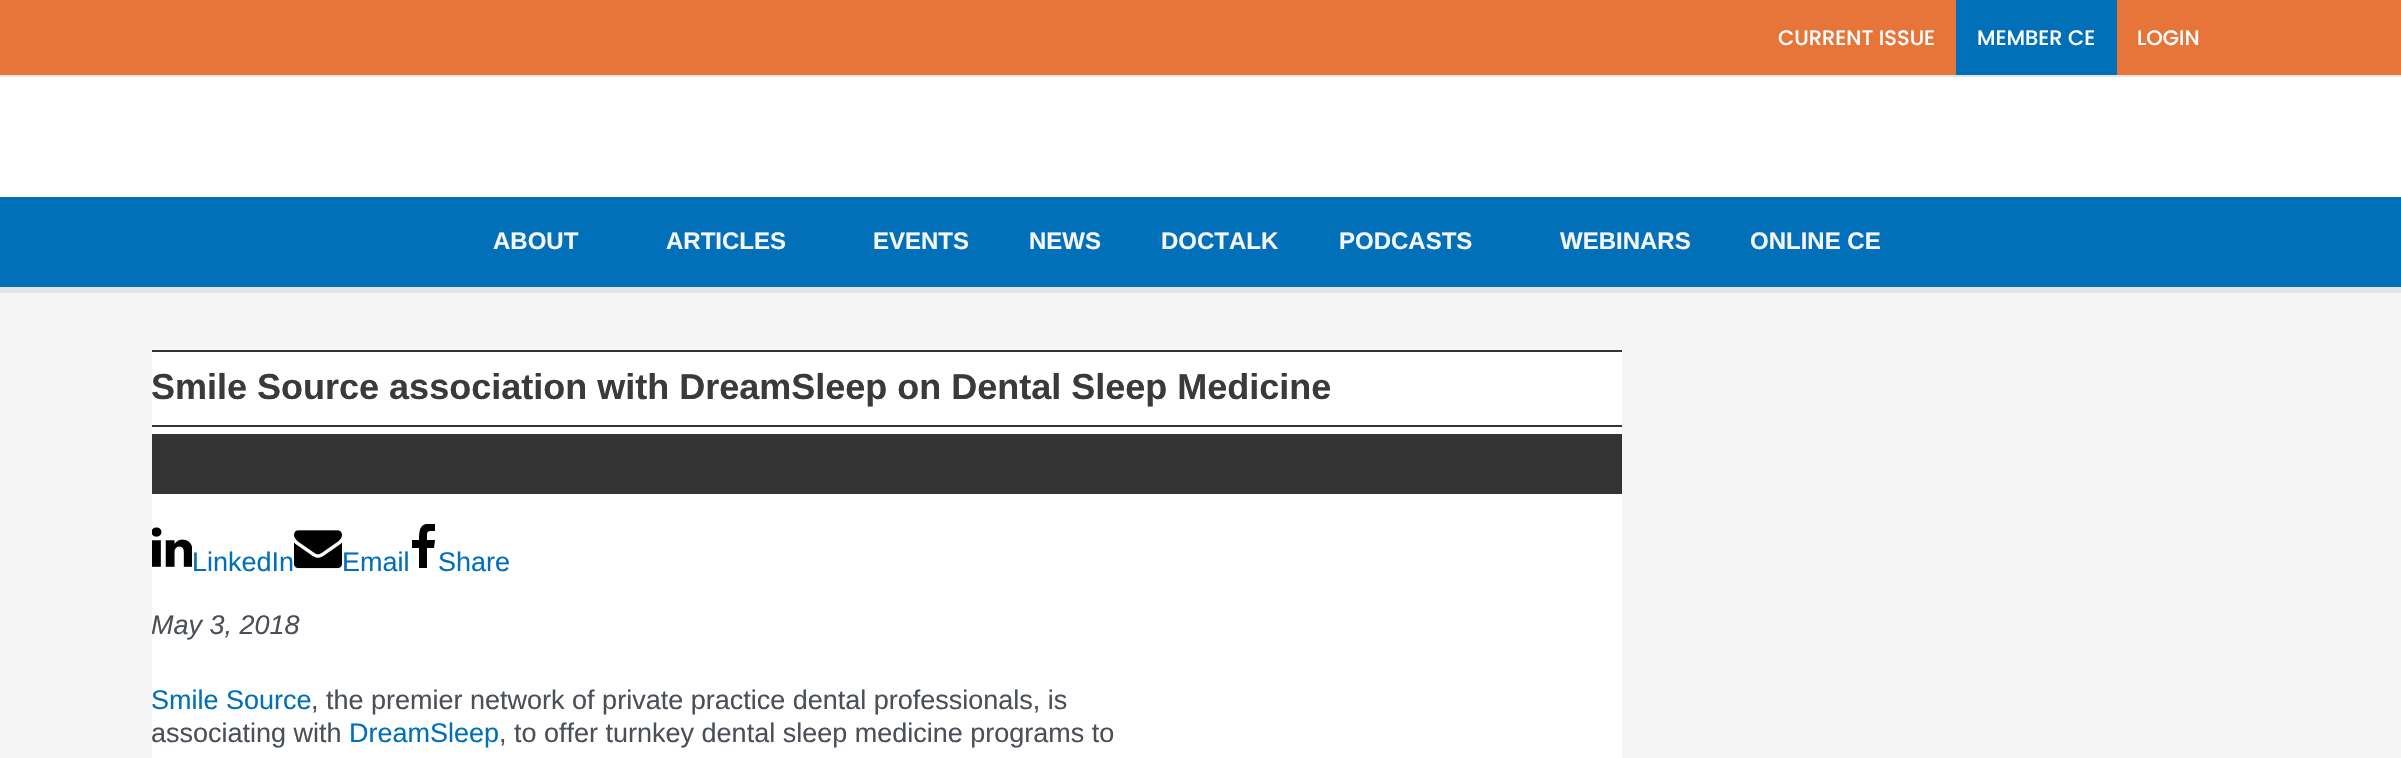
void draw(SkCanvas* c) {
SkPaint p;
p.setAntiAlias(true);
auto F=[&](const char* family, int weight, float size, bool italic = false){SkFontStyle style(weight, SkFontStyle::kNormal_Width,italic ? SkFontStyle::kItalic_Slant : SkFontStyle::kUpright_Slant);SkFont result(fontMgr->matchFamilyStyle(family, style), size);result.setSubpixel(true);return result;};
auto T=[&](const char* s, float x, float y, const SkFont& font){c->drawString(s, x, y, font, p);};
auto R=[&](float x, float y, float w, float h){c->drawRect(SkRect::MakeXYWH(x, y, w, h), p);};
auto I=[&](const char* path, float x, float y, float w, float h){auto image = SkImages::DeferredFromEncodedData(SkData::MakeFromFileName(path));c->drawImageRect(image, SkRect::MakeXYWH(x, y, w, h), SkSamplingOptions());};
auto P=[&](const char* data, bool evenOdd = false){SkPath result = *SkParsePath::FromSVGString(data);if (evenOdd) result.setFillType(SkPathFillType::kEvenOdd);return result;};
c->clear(0xfff5f5f5);
p.setColor(0xffe77438);
R(0,0,2401,75);
p.setColor(0xffe5e5e5);
R(0,75,2401,2);
auto f1 = F("Poppins",500,21);
p.setColor(0xffffffff);
T("CURRENT ISSUE",1778,45,f1);
p.setColor(0xff0170b9);
R(1956,0,161,75);
p.setColor(0xffffffff);
T("MEMBER CE",1977,45,f1);
T("LOGIN",2137,45,f1);
R(0,77,2401,120);
p.setColor(0xff0170b9);
R(0,197,2401,90);
p.setColor(0xffe5e5e5);
R(0,287,2401,6);
auto f2 = F("Liberation Sans",700,24);
p.setColor(0xfff5f5f5);
T("ABOUT",493,249,f2);
T("ARTICLES",666,249,f2);
T("EVENTS",873,249,f2);
T("NEWS",1029,249,f2);
T("DOCTALK",1161,249,f2);
T("PODCASTS",1339,249,f2);
T("WEBINARS",1560,249,f2);
T("ONLINE CE",1750,249,f2);
p.setColor(0xffffffff);
R(152,352,1470,406);
p.setColor(0xff333333);
R(152,350,1470,2);
R(152,425,1470,2);
auto f3 = F("Liberation Sans",700,36);
p.setColor(0xff3a3a3a);
T("Smile Source association with DreamSleep on Dental Sleep Medicine",151,399,f3);
p.setColor(0xff333333);
R(152,434,1470,60);
I("1.png",152,527,40,40);
auto f4 = F("Liberation Sans",400,27);
p.setColor(0xff0170b9);
T("LinkedIn",192,571,f4);
I("2.png",294,530,48,39);
T("Email",342,571,f4);
T("Share",438,571,f4);
c->save();
c->clipRect(SkRect::MakeXYWH(410,524,28,48));
p.setColor(0xff000000);
c->drawPath(P("M435 524v7c-9 0-8 0-8 9h8l-1 8h-7v20h-8v-20h-7v-8h7c0-13 2-18 16-16z"),p);
c->restore();
auto f5 = F("Liberation Sans",400,27,true);
p.setColor(0xff4b4f58);
T("May 3, 2018",151,634,f5);
p.setColor(0xff0170b9);
T("Smile Source",151,709,f4);
p.setColor(0xff4b4f58);
T(", the premier network of private practice dental professionals, is",311,709,f4);
T("associating with",151,742,f4);
p.setColor(0xff0170b9);
T("DreamSleep",349,742,f4);
p.setColor(0xff4b4f58);
T(", to offer turnkey dental sleep medicine programs to",499,742,f4);
}
